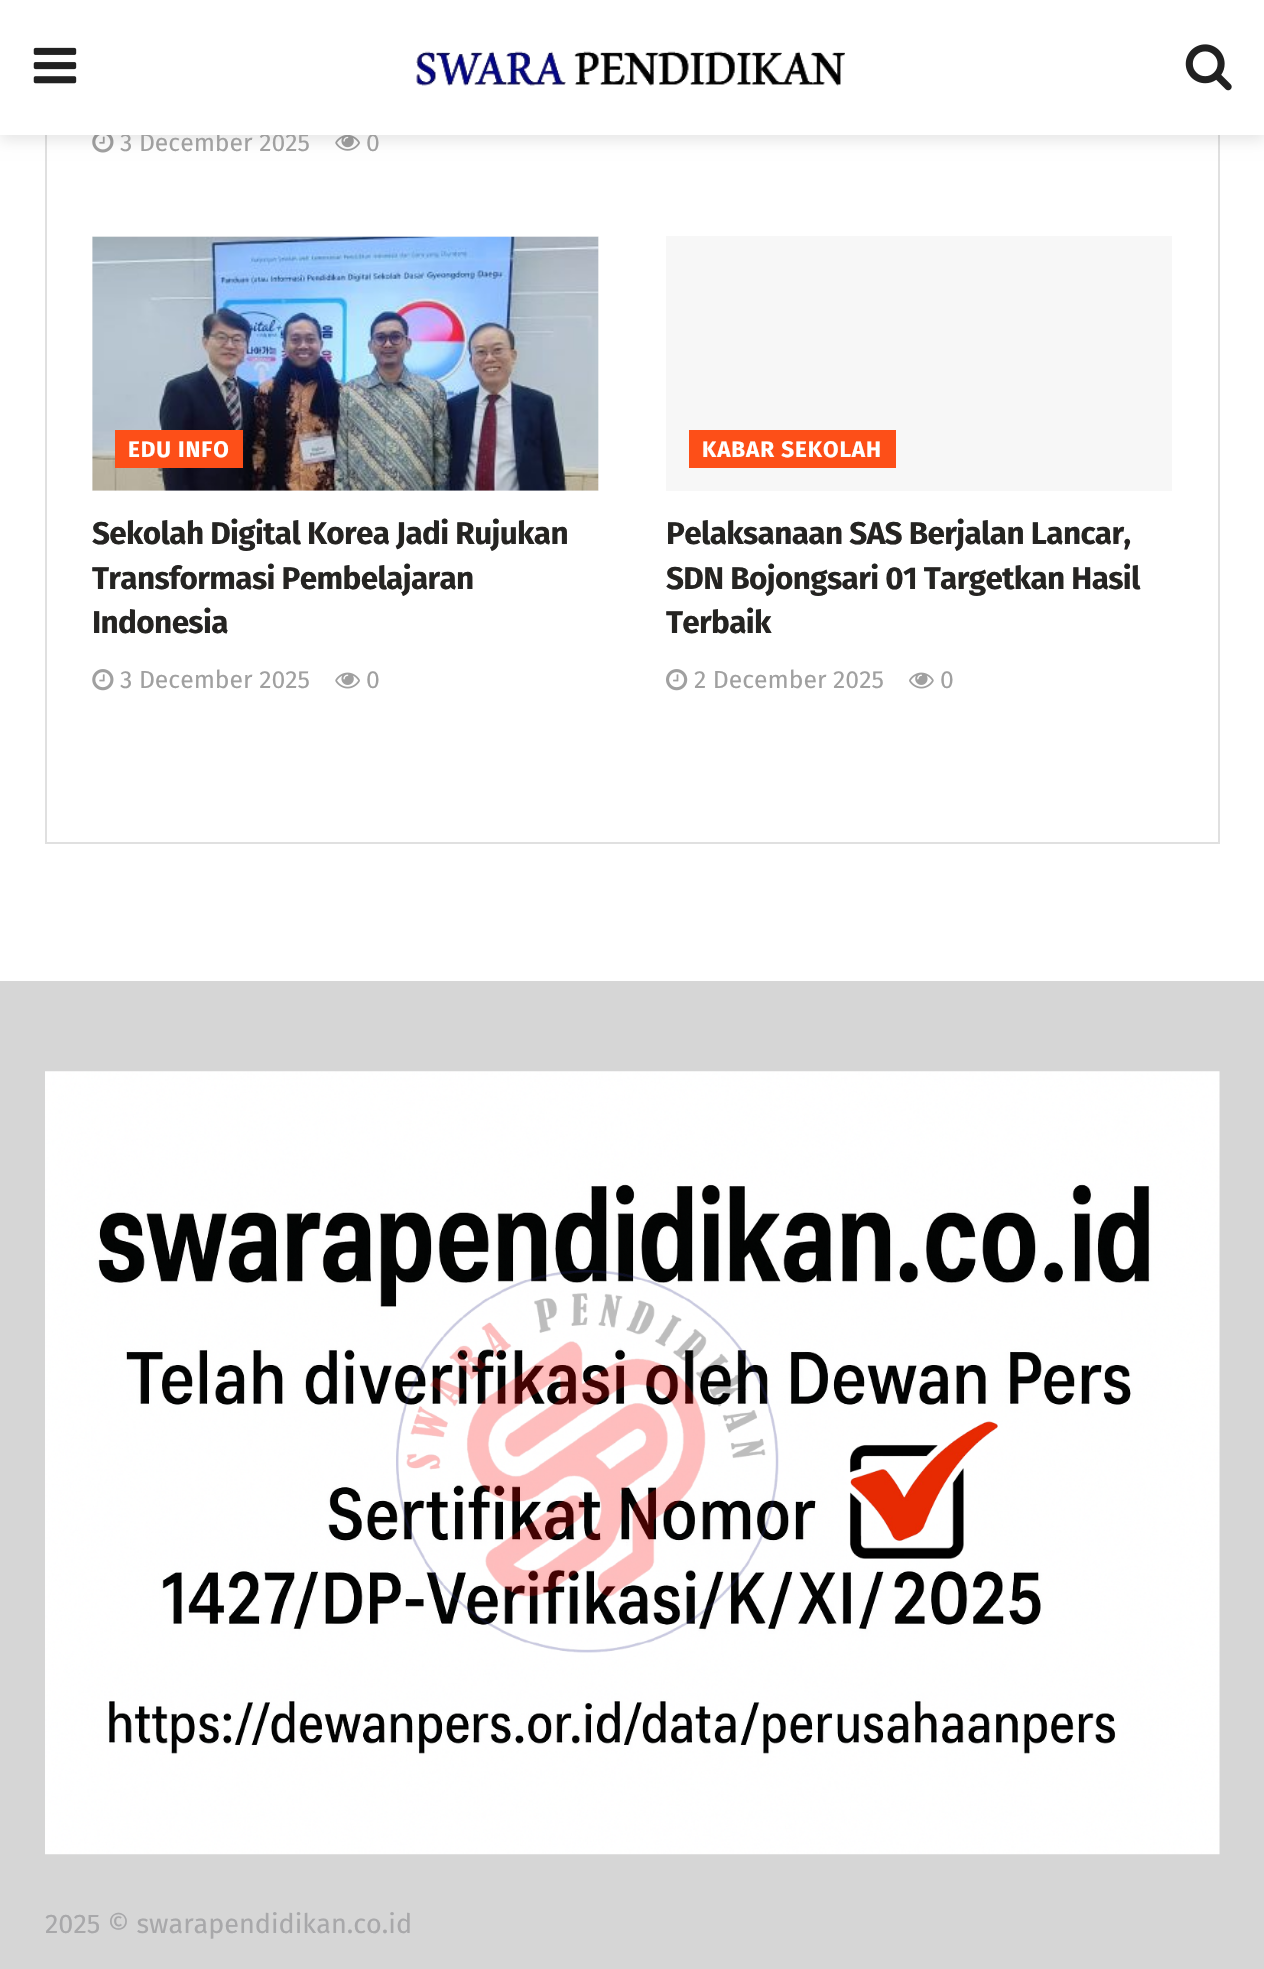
void draw(SkCanvas* c) {
SkPaint p;
p.setAntiAlias(true);
auto F=[&](const char* family, int weight, float size, bool italic = false){SkFontStyle style(weight, SkFontStyle::kNormal_Width,italic ? SkFontStyle::kItalic_Slant : SkFontStyle::kUpright_Slant);SkFont result(fontMgr->matchFamilyStyle(family, style), size);result.setSubpixel(true);return result;};
auto T=[&](const char* s, float x, float y, const SkFont& font){c->drawString(s, x, y, font, p);};
auto L=[&](const char* s, float x, float y, const SkFont& font, const SkPaint& ink, float letter, float word){std::vector<SkGlyphID> glyphs(font.countText(s, strlen(s), SkTextEncoding::kUTF8));std::vector<float> xs(glyphs.size());font.textToGlyphs(s, strlen(s), SkTextEncoding::kUTF8, glyphs);font.getXPos(glyphs, xs, x);float extra = 0;for (size_t i = 0; i < glyphs.size(); i++) {xs[i] += extra;extra += letter + word * (glyphs[i] == font.unicharToGlyph(' '));}c->drawTextBlob(SkTextBlob::MakeFromPosHGlyphs(glyphs, xs, y, font), 0, 0, ink);};
auto R=[&](float x, float y, float w, float h){c->drawRect(SkRect::MakeXYWH(x, y, w, h), p);};
auto I=[&](const char* path, float x, float y, float w, float h){auto image = SkImages::DeferredFromEncodedData(SkData::MakeFromFileName(path));c->drawImageRect(image, SkRect::MakeXYWH(x, y, w, h), SkSamplingOptions());};
c->clear(0xffffffff);
p.setStroke(true);
p.setStrokeWidth(2);
p.setColor(0xffe0e0e0);
c->drawRect(SkRect::MakeXYWH(46,-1,1173,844),p);
I("4.png",92,135,22,18);
I("5.png",335,135,25,16);
p.setStroke(false);
p.setColor(0x1a000000);
p.setMaskFilter(SkMaskFilter::MakeBlur(kNormal_SkBlurStyle, 7));
c->drawRect(SkRect::MakeXYWH(0,5,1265,135),p);
p.setMaskFilter(nullptr);
auto f1 = F("Fira Sans",400,24.75);
p.setColor(0xffa0a0a0);
T("3 December 2025",120,151,f1);
T("0",366,151,f1);
p.setColor(0xffffffff);
R(0,0,1264,135);
I("1.png",33,47,44,37);
I("2.png",416,51,429,35);
I("3.png",1185,44,47,47);
p.setColor(0xfff7f7f7);
R(92,236,507,255);
I("6.png",92,236,507,255);
p.setColor(0xfffd4f18);
R(115,430,128,38);
auto f2 = F("Fira Sans",700,22.5);
p.setColor(0xffffffff);
L("EDU INFO",128,457,f2,p,.9,0);
auto f3 = F("Fira Sans",700,31.5);
p.setColor(0xff252422);
L("Sekolah Digital Korea Jadi Rujukan",92,544,f3,p,-.65,0);
L("Transformasi Pembelajaran",92,589,f3,p,-.65,0);
L("Indonesia",92,633,f3,p,-.65,0);
I("7.png",92,669,22,22);
p.setColor(0xffa0a0a0);
T("3 December 2025",120,688,f1);
I("8.png",335,672,25,17);
T("0",366,688,f1);
p.setColor(0xfff7f7f7);
R(666,236,506,255);
p.setColor(0xfffd4f18);
R(689,430,207,38);
p.setColor(0xffffffff);
L("KABAR SEKOLAH",702,457,f2,p,.9,0);
p.setColor(0xff252422);
L("Pelaksanaan SAS Berjalan Lancar,",666,544,f3,p,-.65,0);
L("SDN Bojongsari 01 Targetkan Hasil",666,589,f3,p,-.65,0);
L("Terbaik",666,633,f3,p,-.65,0);
I("9.png",666,669,22,22);
p.setColor(0xffa0a0a0);
T("2 December 2025",694,688,f1);
I("10.png",909,672,25,17);
T("0",940,688,f1);
p.setColor(0xffd6d6d6);
R(0,981,1264,988);
I("11.png",45,1071,1175,784);
auto f4 = F("Fira Sans",400,27);
p.setColor(0xffa8a8aa);
T("2025 © swarapendidikan.co.id",45,1933,f4);
}
